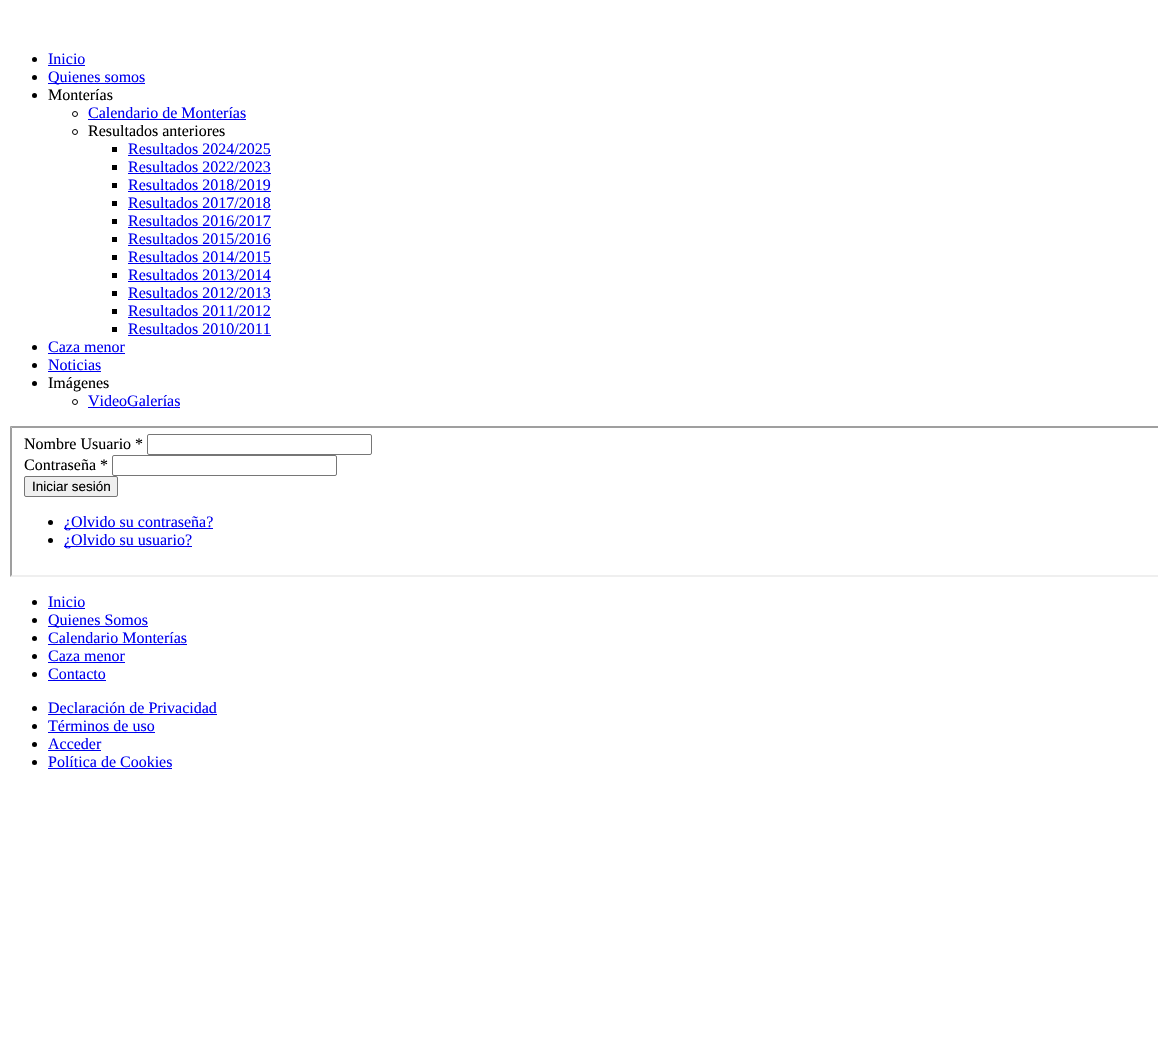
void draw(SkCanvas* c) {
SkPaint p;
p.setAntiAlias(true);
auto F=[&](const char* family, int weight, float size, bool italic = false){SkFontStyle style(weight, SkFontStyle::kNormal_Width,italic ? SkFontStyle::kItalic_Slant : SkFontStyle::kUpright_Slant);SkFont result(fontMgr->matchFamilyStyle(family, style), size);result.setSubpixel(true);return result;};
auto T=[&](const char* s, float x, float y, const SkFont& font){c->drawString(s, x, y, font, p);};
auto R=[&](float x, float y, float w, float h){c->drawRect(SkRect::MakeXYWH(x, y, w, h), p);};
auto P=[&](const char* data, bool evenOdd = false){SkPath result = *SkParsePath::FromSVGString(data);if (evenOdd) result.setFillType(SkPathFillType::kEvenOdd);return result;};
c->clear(0xffffffff);
p.setColor(0xff000000);
c->drawCircle(34.5,59.5,2.5,p);
auto f1 = F("Liberation Serif",400,16);
p.setColor(0xff0000ee);
T("Inicio",48,64,f1);
R(48,65,37,1);
p.setColor(0xff000000);
c->drawCircle(34.5,77.5,2.5,p);
p.setColor(0xff0000ee);
R(48,83,97,1);
T("Quienes somos",48,82,f1);
p.setColor(0xff000000);
c->drawCircle(34.5,95.5,2.5,p);
T("Monterías",48,100,f1);
p.setStroke(true);
p.setStrokeWidth(1);
c->drawCircle(75,114,2.5,p);
p.setStroke(false);
p.setColor(0xff0000ee);
T("Calendario de Monterías",88,118,f1);
R(88,119,158,1);
p.setStroke(true);
p.setColor(0xff000000);
c->drawCircle(75,132,2.5,p);
p.setStroke(false);
T("Resultados anteriores",88,136,f1);
R(112,147,5,5);
p.setColor(0xff0000ee);
T("Resultados 2024/2025",128,154,f1);
R(128,155,143,1);
p.setColor(0xff000000);
R(112,165,5,5);
p.setColor(0xff0000ee);
T("Resultados 2022/2023",128,172,f1);
R(128,173,143,1);
p.setColor(0xff000000);
R(112,183,5,5);
p.setColor(0xff0000ee);
T("Resultados 2018/2019",128,190,f1);
R(128,191,143,1);
p.setColor(0xff000000);
R(112,201,5,5);
p.setColor(0xff0000ee);
T("Resultados 2017/2018",128,208,f1);
R(128,209,143,1);
p.setColor(0xff000000);
R(112,219,5,5);
p.setColor(0xff0000ee);
T("Resultados 2016/2017",128,226,f1);
R(128,227,143,1);
p.setColor(0xff000000);
R(112,237,5,5);
p.setColor(0xff0000ee);
T("Resultados 2015/2016",128,244,f1);
R(128,245,143,1);
p.setColor(0xff000000);
R(112,255,5,5);
p.setColor(0xff0000ee);
T("Resultados 2014/2015",128,262,f1);
R(128,263,143,1);
p.setColor(0xff000000);
R(112,273,5,5);
p.setColor(0xff0000ee);
T("Resultados 2013/2014",128,280,f1);
R(128,281,143,1);
p.setColor(0xff000000);
R(112,291,5,5);
p.setColor(0xff0000ee);
T("Resultados 2012/2013",128,298,f1);
R(128,299,143,1);
p.setColor(0xff000000);
R(112,309,5,5);
p.setColor(0xff0000ee);
T("Resultados 2011/2012",128,316,f1);
R(128,317,143,1);
p.setColor(0xff000000);
R(112,327,5,5);
p.setColor(0xff0000ee);
T("Resultados 2010/2011",128,334,f1);
R(128,335,143,1);
p.setColor(0xff000000);
c->drawCircle(34.5,347.5,2.5,p);
p.setColor(0xff0000ee);
T("Caza menor",48,352,f1);
R(48,353,77,1);
p.setColor(0xff000000);
c->drawCircle(34.5,365.5,2.5,p);
p.setColor(0xff0000ee);
T("Noticias",48,370,f1);
R(48,371,53,1);
p.setColor(0xff000000);
c->drawCircle(34.5,383.5,2.5,p);
T("Imágenes",48,388,f1);
p.setStroke(true);
c->drawCircle(75,402,2.5,p);
p.setStroke(false);
p.setColor(0xff0000ee);
T("VideoGalerías",88,406,f1);
R(88,407,92,1);
p.setColor(0xff9f9f9f);
c->drawPath(P("M10 426h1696l-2 2h-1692z"),p);
p.setColor(0xffefefef);
c->drawPath(P("M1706 577h-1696l2-2h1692z"),p);
p.setColor(0xff9f9f9f);
c->drawPath(P("M10 577v-151l2 2v147z"),p);
p.setColor(0xff000000);
T("Nombre Usuario *",24,449,f1);
p.setStroke(true);
p.setColor(0xff767676);
c->drawRoundRect(SkRect::MakeXYWH(147.5,434.5,224,20),1.5,1.5,p);
p.setStroke(false);
p.setColor(0xff000000);
T("Contraseña *",24,470,f1);
p.setStroke(true);
p.setColor(0xff767676);
c->drawRoundRect(SkRect::MakeXYWH(112.5,455.5,224,20),1.5,1.5,p);
p.setStroke(false);
p.setColor(0xffefefef);
c->drawRoundRect(SkRect::MakeXYWH(24.5,476.5,93,20),1.5,1.5,p);
p.setStroke(true);
p.setColor(0xff767676);
c->drawRoundRect(SkRect::MakeXYWH(24.5,476.5,93,20),1.5,1.5,p);
auto f2 = F("Liberation Sans",400,13.5);
p.setStroke(false);
p.setColor(0xff000000);
T("Iniciar sesión",32,491,f2);
c->drawCircle(50.5,522.5,2.5,p);
p.setColor(0xff0000ee);
R(64,528,149,1);
T("¿Olvido su contraseña?",64,527,f1);
p.setColor(0xff000000);
c->drawCircle(50.5,540.5,2.5,p);
p.setColor(0xff0000ee);
R(64,546,128,1);
T("¿Olvido su usuario?",64,545,f1);
p.setColor(0xff000000);
c->drawCircle(34.5,602.5,2.5,p);
p.setColor(0xff0000ee);
T("Inicio",48,607,f1);
R(48,608,37,1);
p.setColor(0xff000000);
c->drawCircle(34.5,620.5,2.5,p);
p.setColor(0xff0000ee);
R(48,626,100,1);
T("Quienes Somos",48,625,f1);
p.setColor(0xff000000);
c->drawCircle(34.5,638.5,2.5,p);
p.setColor(0xff0000ee);
T("Calendario Monterías",48,643,f1);
R(48,644,139,1);
p.setColor(0xff000000);
c->drawCircle(34.5,656.5,2.5,p);
p.setColor(0xff0000ee);
T("Caza menor",48,661,f1);
R(48,662,77,1);
p.setColor(0xff000000);
c->drawCircle(34.5,674.5,2.5,p);
p.setColor(0xff0000ee);
T("Contacto",48,679,f1);
R(48,680,58,1);
p.setColor(0xff000000);
c->drawCircle(34.5,708.5,2.5,p);
p.setColor(0xff0000ee);
T("Declaración de Privacidad",48,713,f1);
R(48,714,169,1);
p.setColor(0xff000000);
c->drawCircle(34.5,726.5,2.5,p);
p.setColor(0xff0000ee);
T("Términos de uso",48,731,f1);
R(48,732,107,1);
p.setColor(0xff000000);
c->drawCircle(34.5,744.5,2.5,p);
p.setColor(0xff0000ee);
T("Acceder",48,749,f1);
R(48,750,53,1);
p.setColor(0xff000000);
c->drawCircle(34.5,762.5,2.5,p);
p.setColor(0xff0000ee);
T("Política de Cookies",48,767,f1);
R(48,768,124,1);
}
